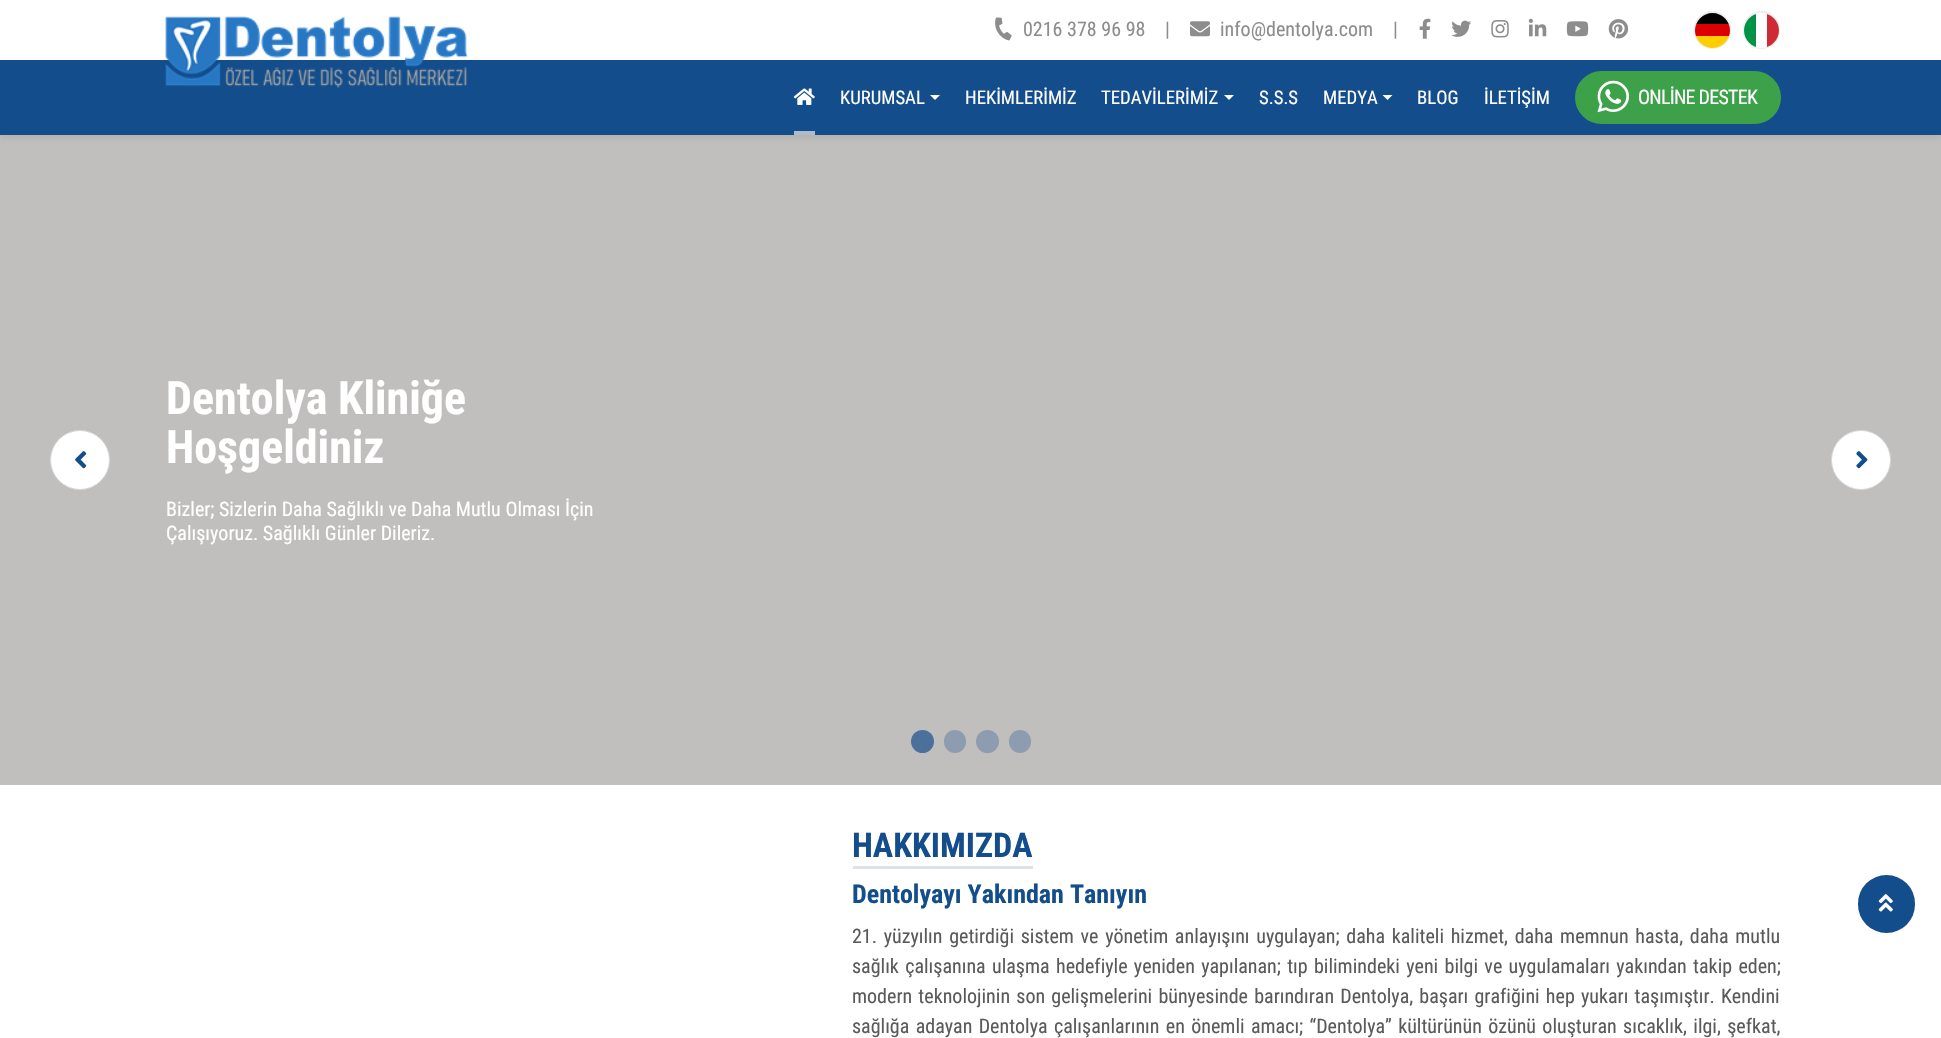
void draw(SkCanvas* c) {
SkPaint p;
p.setAntiAlias(true);
auto F=[&](const char* family, int weight, float size, bool italic = false){SkFontStyle style(weight, SkFontStyle::kNormal_Width,italic ? SkFontStyle::kItalic_Slant : SkFontStyle::kUpright_Slant);SkFont result(fontMgr->matchFamilyStyle(family, style), size);result.setSubpixel(true);return result;};
auto T=[&](const char* s, float x, float y, const SkFont& font){c->drawString(s, x, y, font, p);};
auto L=[&](const char* s, float x, float y, const SkFont& font, const SkPaint& ink, float letter, float word){std::vector<SkGlyphID> glyphs(font.countText(s, strlen(s), SkTextEncoding::kUTF8));std::vector<float> xs(glyphs.size());font.textToGlyphs(s, strlen(s), SkTextEncoding::kUTF8, glyphs);font.getXPos(glyphs, xs, x);float extra = 0;for (size_t i = 0; i < glyphs.size(); i++) {xs[i] += extra;extra += letter + word * (glyphs[i] == font.unicharToGlyph(' '));}c->drawTextBlob(SkTextBlob::MakeFromPosHGlyphs(glyphs, xs, y, font), 0, 0, ink);};
auto R=[&](float x, float y, float w, float h){c->drawRect(SkRect::MakeXYWH(x, y, w, h), p);};
auto Q=[&](float x, float y, float w, float h, float radius){c->drawRoundRect(SkRect::MakeXYWH(x, y, w, h), radius, radius, p);};
auto I=[&](const char* path, float x, float y, float w, float h){auto image = SkImages::DeferredFromEncodedData(SkData::MakeFromFileName(path));c->drawImageRect(image, SkRect::MakeXYWH(x, y, w, h), SkSamplingOptions());};
auto P=[&](const char* data, bool evenOdd = false){SkPath result = *SkParsePath::FromSVGString(data);if (evenOdd) result.setFillType(SkPathFillType::kEvenOdd);return result;};
c->clear(0xffffffff);
I("1.png",995,17,17,24);
auto f1 = F("Roboto Condensed",400,20);
p.setColor(0xff8d8d8d);
T("0216 378 96 98",1023,36,f1);
T("|",1165,36,f1);
I("2.png",1190,21,20,16);
T("info@dentolya.com",1220,36,f1);
T("|",1393,36,f1);
I("3.png",1419,18,12,21);
I("4.png",1451,20,20,17);
I("5.png",1491,20,18,18);
I("6.png",1528,18,19,19);
I("7.png",1566,21,23,16);
I("8.png",1608,19,21,20);
p.setColor(0xfff0eeee);
Q(1694,11,37,38,18.5);
p.setStroke(true);
p.setStrokeWidth(1);
p.setColor(0xb3f0eeee);
c->drawRoundRect(SkRect::MakeXYWH(1694.5,11.5,36,37),18,18,p);
c->save();
c->clipPath(P("M1712.5 13c9.5 0 17.5 8 17.5 17.5c0 9.5-8 17.5-17.5 17.5c-9.5 0-17.5-8-17.5-17.5c0-9.5 8-17.5 17.5-17.5z"),true);
p.setStroke(false);
p.setColor(0xffffce00);
R(1696,36,33,12);
p.setColor(0xff000000);
R(1696,13,33,11);
p.setColor(0xffdd0000);
R(1695,24,35,12);
c->restore();
p.setColor(0xfff0eeee);
Q(1743,11,37,38,18.5);
p.setStroke(true);
p.setColor(0xb3f0eeee);
c->drawRoundRect(SkRect::MakeXYWH(1743.5,11.5,36,37),18,18,p);
p.setStroke(false);
p.setColor(0xffffffff);
c->drawCircle(1761.5,30.5,17.5,p);
c->save();
c->clipPath(P("M1761.5 13c9.5 0 17.5 8 17.5 17.5c0 9.5-8 17.5-17.5 17.5c-9.5 0-17.5-8-17.5-17.5c0-9.5 8-17.5 17.5-17.5z"),true);
p.setColor(0xff009246);
R(1744,14,12,33);
p.setColor(0xffce2b37);
R(1767,14,12,33);
c->restore();
p.setColor(0xffc1bebe);
R(0,135,1941,650);
p.setColor(0x12000000);
p.setMaskFilter(SkMaskFilter::MakeBlur(kNormal_SkBlurStyle, 2.5));
c->drawRect(SkRect::MakeXYWH(0,63,1941,75),p);
p.setMaskFilter(nullptr);
p.setColor(0xff134d8b);
R(0,60,1941,75);
I("9.png",165,16,303,72);
I("10.png",793,88,22,17);
p.setColor(0xffadbccb);
R(794,131,21,4);
auto f2 = F("Roboto Condensed",400,18.75);
p.setColor(0xffffffff);
T("KURUMSAL",840,104,f2);
c->drawPath(P("M930 95h10l-5 5z"),p);
T("HEKİMLERİMİZ",965,104,f2);
T("TEDAVİLERİMİZ",1101,104,f2);
c->drawPath(P("M1224 95h10l-5 5z"),p);
T("S.S.S",1259,104,f2);
T("MEDYA",1323,104,f2);
c->drawPath(P("M1382.5 95h10l-5 5z"),p);
T("BLOG",1417,104,f2);
T("İLETİŞİM",1484,104,f2);
p.setColor(0xff3ca149);
Q(1575,71,206,53,26.5);
I("11.png",1597,80,32,33);
p.setColor(0xffffffff);
L("ONLİNE DESTEK",1638,104,f1,p,-.75,0);
auto f3 = F("Roboto Condensed",700,46);
T("Dentolya Kliniğe",166,414,f3);
T("Hoşgeldiniz",166,463,f3);
T("Bizler; Sizlerin Daha Sağlıklı ve Daha Mutlu Olması İçin",166,516,f1);
T("Çalışıyoruz. Sağlıklı Günler Dileriz.",166,540,f1);
c->drawCircle(80,460,29.5,p);
p.setStroke(true);
p.setColor(0xffd7d7d7);
c->drawCircle(80,460,29.5,p);
I("12.png",75,451,12,18);
p.setStroke(false);
p.setColor(0xffffffff);
c->drawCircle(1861,460,29.5,p);
p.setStroke(true);
p.setColor(0xffd7d7d7);
c->drawCircle(1861,460,29.5,p);
I("13.png",1856,451,12,18);
p.setStroke(false);
p.setColor(0xff4b719b);
c->drawCircle(922.5,741.5,11.5,p);
p.setColor(0xff8d9caf);
Q(944,730,22,23,11);
c->drawCircle(987.5,741.5,11.5,p);
Q(1009,730,22,23,11);
p.setColor(0xffdee2e6);
R(853,866,180,3);
auto f4 = F("Roboto Condensed",700,34);
p.setColor(0xff134d8b);
T("HAKKIMIZDA",852,857,f4);
auto f5 = F("Roboto Condensed",700,26);
T("Dentolyayı Yakından Tanıyın",852,903,f5);
p.setColor(0xff5a5a5a);
L("21. yüzyılın getirdiği sistem ve yönetim anlayışını uygulayan; daha kaliteli hizmet, daha memnun hasta, daha mutlu",852,943,f1,p,0,2.1);
L("sağlık çalışanına ulaşma hedefiyle yeniden yapılanan; tıp bilimindeki yeni bilgi ve uygulamaları yakından takip eden;",852,973,f1,p,0,1.75);
L("modern teknolojinin son gelişmelerini bünyesinde barındıran Dentolya, başarı grafiğini hep yukarı taşımıştır. Kendini",852,1003,f1,p,0,1.6);
L("sağlığa adayan Dentolya çalışanlarının en önemli amacı; “Dentolya” kültürünün özünü oluşturan sıcaklık, ilgi, şefkat,",852,1033,f1,p,0,1.75);
p.setColor(0xff134d8b);
Q(1858,875,57,58,28.5);
I("14.png",1878,894,15,18);
}
